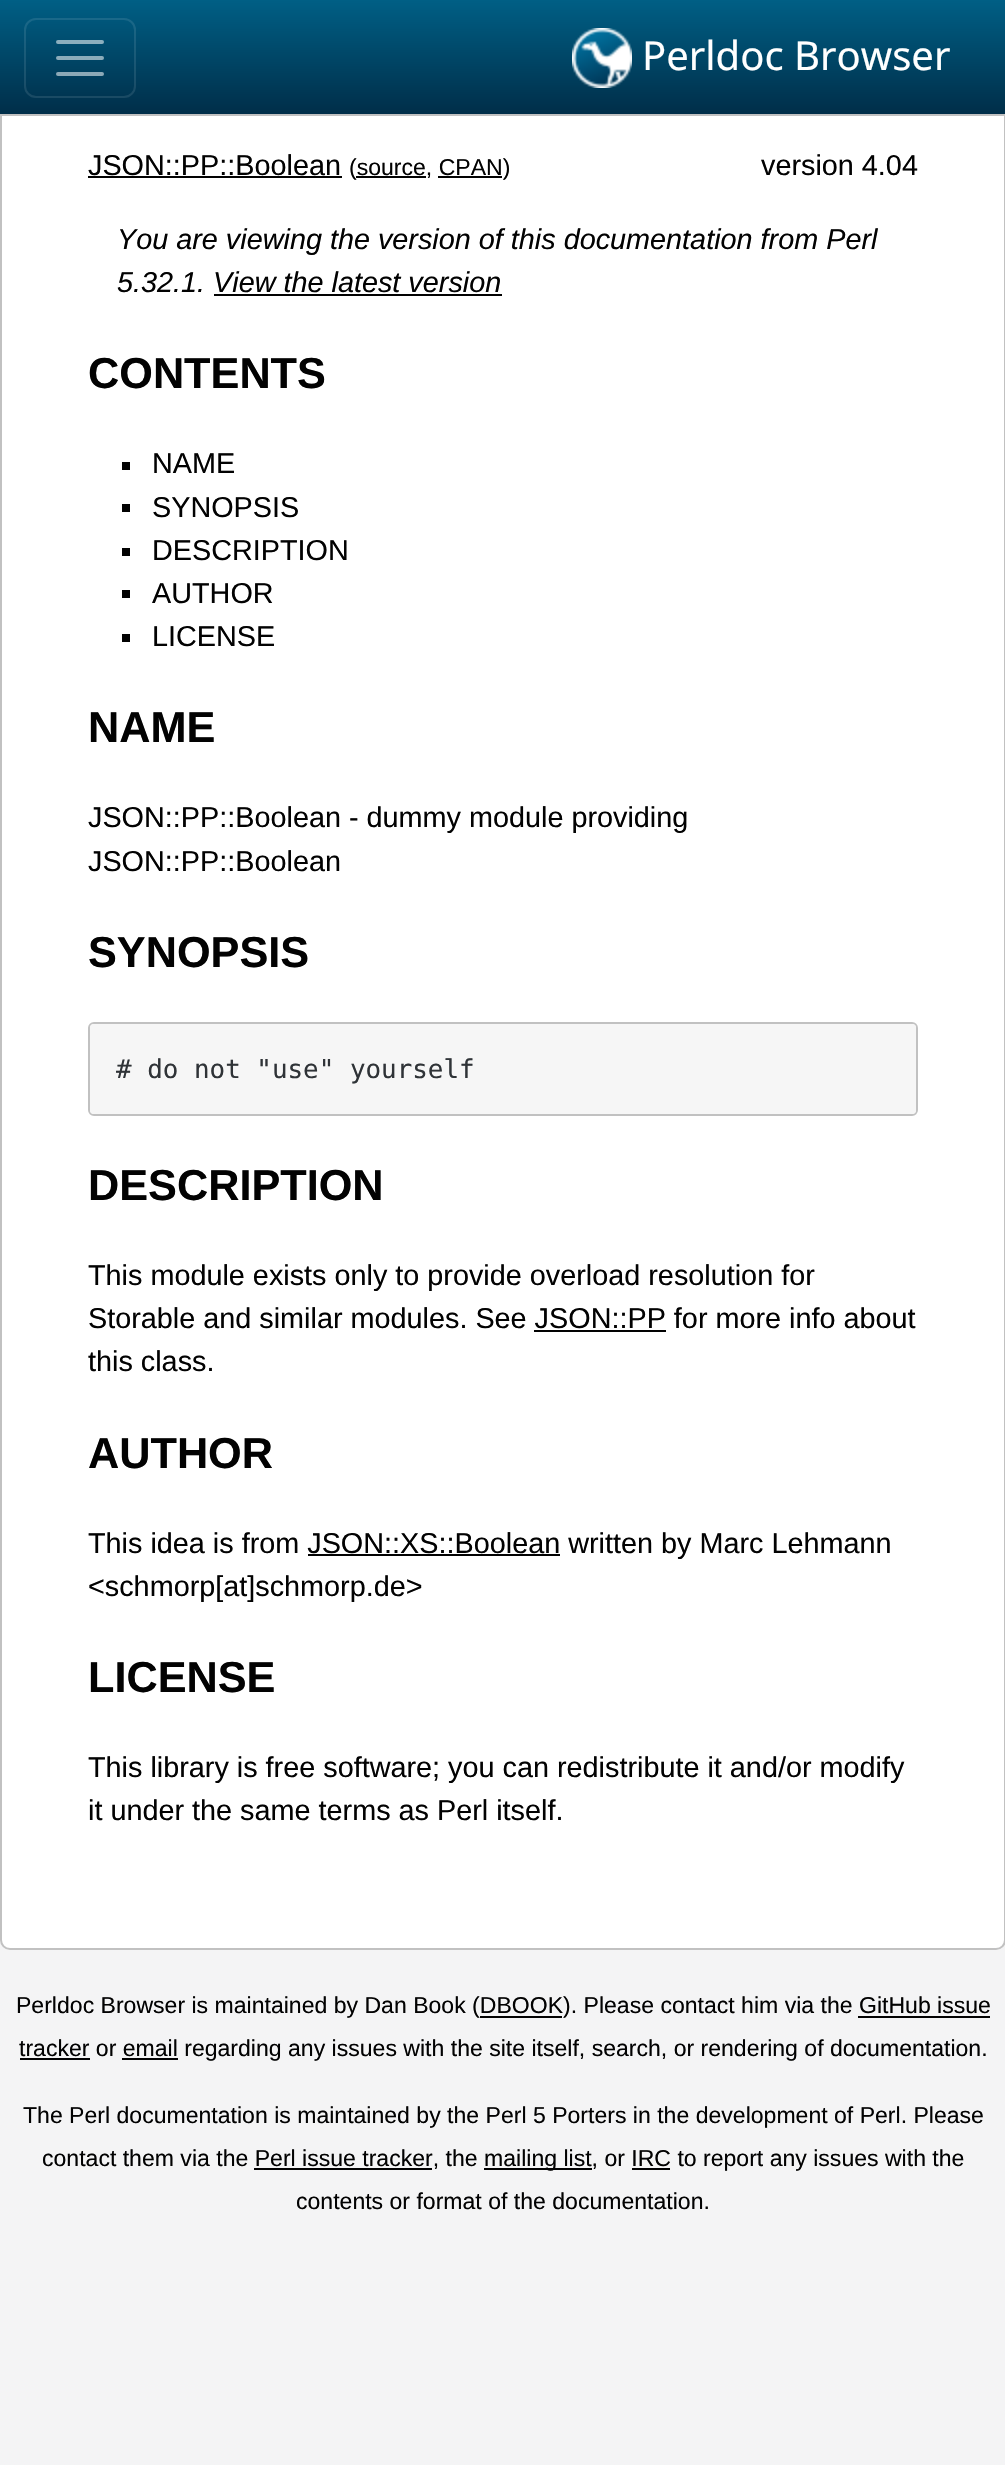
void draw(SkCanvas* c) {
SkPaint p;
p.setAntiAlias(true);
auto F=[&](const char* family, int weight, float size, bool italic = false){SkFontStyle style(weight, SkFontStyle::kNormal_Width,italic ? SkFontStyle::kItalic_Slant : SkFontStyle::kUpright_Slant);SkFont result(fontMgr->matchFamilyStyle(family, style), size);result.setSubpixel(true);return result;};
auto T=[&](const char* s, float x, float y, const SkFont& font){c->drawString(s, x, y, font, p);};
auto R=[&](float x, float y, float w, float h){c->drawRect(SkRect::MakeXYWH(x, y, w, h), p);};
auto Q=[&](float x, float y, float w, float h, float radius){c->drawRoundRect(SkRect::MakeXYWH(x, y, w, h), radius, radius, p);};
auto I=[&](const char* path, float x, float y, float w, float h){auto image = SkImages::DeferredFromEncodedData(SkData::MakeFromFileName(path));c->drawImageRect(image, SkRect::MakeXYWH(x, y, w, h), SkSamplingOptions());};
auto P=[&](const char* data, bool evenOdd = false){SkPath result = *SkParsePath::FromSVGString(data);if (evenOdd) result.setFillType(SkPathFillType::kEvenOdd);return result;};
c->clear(0xfff4f4f5);
{
const SkColor colors[] = {0xff005f85,0xff002e49};
const float stops[] = {0,1};
const SkPoint ends[] = {{503,0}, {503,114}};
p.setShader(SkGradientShader::MakeLinear(ends, colors, stops, 2, SkTileMode::kClamp));
p.setAlpha(255);
}
R(0,0,1005,114);
p.setStroke(true);
p.setStrokeWidth(2);
p.setShader(nullptr);
p.setColor(0x1affffff);
c->drawRoundRect(SkRect::MakeXYWH(25,19,110,78),11,11,p);
p.setStrokeWidth(4);
p.setStrokeCap(SkPaint::kRound_Cap);
p.setColor(0x8cffffff);
c->drawPath(P("M58 42h44m-44 16h44m-44 16h44"),p);
I("1.png",572,28,60,60);
auto f1 = F("Noto Sans",400,40);
p.setStroke(false);
p.setColor(0xffffffff);
T("Perldoc Browser",642,70,f1);
c->drawPath(P("M1 115h1004v1825c0 5-4 9-9 9h-986c-5 0-9-4-9-9z"),p);
p.setStroke(true);
p.setStrokeWidth(2);
p.setStrokeCap(SkPaint::kButt_Cap);
p.setColor(0xffc1c1c1);
c->drawPath(P("M1 115h1004v1825c0 5-4 9-9 9h-986c-5 0-9-4-9-9z"),p);
auto f2 = F("Liberation Sans",400,28.8);
p.setStroke(false);
p.setColor(0xff020202);
T("JSON::PP::Boolean",88,175,f2);
R(88,176,254,2);
auto f3 = F("Liberation Sans",400,23.05);
T("(source, CPAN)",349,175,f3);
R(356,176,70,2);
R(438,176,64,2);
T("version 4.04",761,175,f2);
auto f4 = F("Liberation Sans",400,28.8,true);
T("You are viewing the version of this documentation from Perl",117,249,f4);
T("5.32.1. View the latest version",117,292,f4);
R(214,294,288,2);
auto f5 = F("Liberation Sans",700,43.25);
T("CONTENTS",88,388,f5);
R(122,462,8,8);
T("NAME",152,473,f2);
R(122,504,8,8);
T("SYNOPSIS",152,517,f2);
R(122,548,8,8);
T("DESCRIPTION",152,560,f2);
R(122,590,8,8);
T("AUTHOR",152,603,f2);
R(122,634,8,8);
T("LICENSE",152,646,f2);
T("NAME",88,742,f5);
T("JSON::PP::Boolean - dummy module providing",88,827,f2);
T("JSON::PP::Boolean",88,871,f2);
T("SYNOPSIS",88,967,f5);
p.setStroke(true);
p.setColor(0xffc1c1c1);
c->drawRoundRect(SkRect::MakeXYWH(89,1023,828,92),5,5,p);
p.setStroke(false);
p.setColor(0xfff6f6f6);
Q(90,1024,826,90,4);
auto f6 = F("DejaVu Sans Mono",400,25.9);
p.setColor(0xff2f3337);
T("# do not \"use\" yourself",116,1078,f6);
p.setColor(0xff020202);
T("DESCRIPTION",88,1200,f5);
T("This module exists only to provide overload resolution for",88,1285,f2);
T("Storable and similar modules. See JSON::PP for more info about",88,1328,f2);
R(534,1330,132,2);
T("this class.",88,1371,f2);
T("AUTHOR",88,1468,f5);
T("This idea is from JSON::XS::Boolean written by Marc Lehmann",88,1553,f2);
R(308,1554,252,2);
T("<schmorp[at]schmorp.de>",88,1596,f2);
T("LICENSE",88,1692,f5);
T("This library is free software; you can redistribute it and/or modify",88,1777,f2);
T("it under the same terms as Perl itself.",88,1820,f2);
T("Perldoc Browser is maintained by Dan Book (DBOOK). Please contact him via the GitHub issue",16,2013,f3);
R(480,2016,82,2);
R(20,2058,70,2);
T("tracker or email regarding any issues with the site itself, search, or rendering of documentation.",19,2056,f3);
R(858,2016,132,2);
R(122,2058,56,2);
T("The Perl documentation is maintained by the Perl 5 Porters in the development of Perl. Please",23,2123,f3);
T("contact them via the Perl issue tracker, the",42,2166,f3);
R(484,2168,108,2);
T("mailing list, or IRC to report any issues with the",484,2166,f3);
R(254,2168,178,2);
R(632,2168,38,2);
T("contents or format of the documentation.",296,2209,f3);
}
